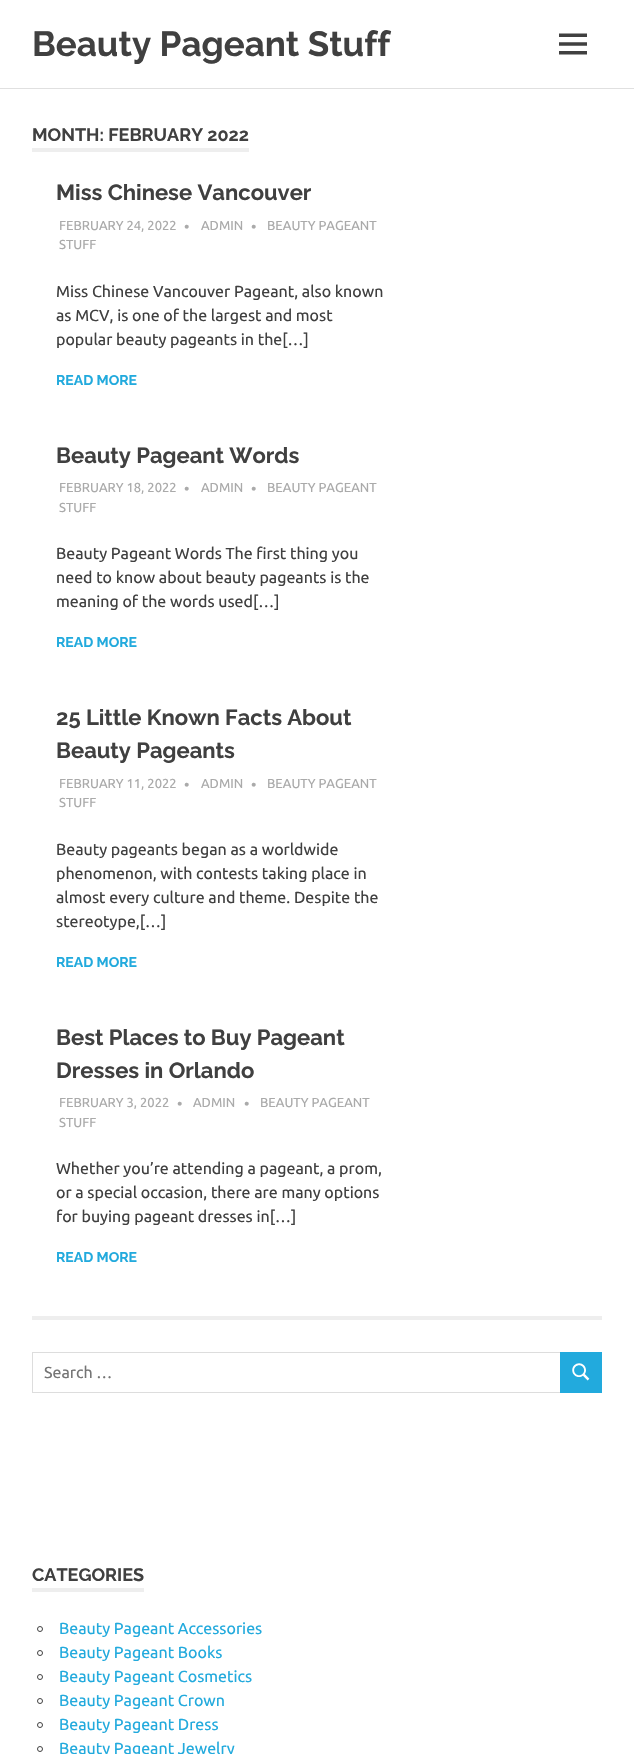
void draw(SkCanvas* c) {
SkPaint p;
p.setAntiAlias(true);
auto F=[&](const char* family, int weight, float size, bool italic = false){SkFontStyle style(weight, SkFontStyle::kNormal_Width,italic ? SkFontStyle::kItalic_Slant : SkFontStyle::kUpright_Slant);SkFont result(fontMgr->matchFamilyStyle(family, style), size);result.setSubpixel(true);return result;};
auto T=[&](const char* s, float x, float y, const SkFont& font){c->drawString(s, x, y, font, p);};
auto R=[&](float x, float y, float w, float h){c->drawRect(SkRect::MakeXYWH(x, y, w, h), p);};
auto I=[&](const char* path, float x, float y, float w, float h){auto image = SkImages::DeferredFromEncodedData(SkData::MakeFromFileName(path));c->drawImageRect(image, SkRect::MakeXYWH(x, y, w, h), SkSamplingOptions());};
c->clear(0xffffffff);
p.setColor(0xffe0e0e0);
R(0,88,634,1);
auto f1 = F("Raleway",100,35);
p.setColor(0xff404040);
T("Beauty Pageant Stuff",32,56,f1);
I("1.png",559,33,28,22);
p.setColor(0xffeeeeee);
R(32,148,217,4);
auto f2 = F("Raleway",100,18);
p.setColor(0xff404040);
T("MONTH: FEBRUARY 2022",32,141,f2);
auto f3 = F("Raleway",100,22);
T("Miss Chinese Vancouver",56,200,f3);
auto f4 = F("Ubuntu",400,13);
p.setColor(0xffaaaaaa);
T("FEBRUARY 24, 2022",59,230,f4);
auto f5 = F("Ubuntu",400,15);
T("•",184,232,f5);
T("ADMIN",201,230,f4);
T("•",251,232,f5);
T("BEAUTY PAGEANT",267,230,f4);
T("STUFF",59,249,f4);
auto f6 = F("Ubuntu",400,16);
p.setColor(0xff404040);
T("Miss Chinese Vancouver Pageant, also known",56,297,f6);
T("as MCV, is one of the largest and most",56,321,f6);
T("popular beauty pageants in the[…]",56,345,f6);
auto f7 = F("Raleway",100,14);
p.setColor(0xff22aadd);
T("READ MORE",56,385,f7);
p.setColor(0xff404040);
T("Beauty Pageant Words",56,463,f3);
p.setColor(0xffaaaaaa);
T("FEBRUARY 18, 2022",59,492,f4);
T("•",184,494,f5);
T("ADMIN",201,492,f4);
T("•",251,494,f5);
T("BEAUTY PAGEANT",267,492,f4);
T("STUFF",59,512,f4);
p.setColor(0xff404040);
T("Beauty Pageant Words The first thing you",56,559,f6);
T("need to know about beauty pageants is the",56,583,f6);
T("meaning of the words used[…]",56,607,f6);
p.setColor(0xff22aadd);
T("READ MORE",56,647,f7);
p.setColor(0xff404040);
T("25 Little Known Facts About",56,725,f3);
T("Beauty Pageants",56,758,f3);
p.setColor(0xffaaaaaa);
T("FEBRUARY 11, 2022",59,788,f4);
T("•",184,790,f5);
T("ADMIN",201,788,f4);
T("•",251,790,f5);
T("BEAUTY PAGEANT",267,788,f4);
T("STUFF",59,807,f4);
p.setColor(0xff404040);
T("Beauty pageants began as a worldwide",56,855,f6);
T("phenomenon, with contests taking place in",56,879,f6);
T("almost every culture and theme. Despite the",56,903,f6);
T("stereotype,[…]",56,927,f6);
p.setColor(0xff22aadd);
T("READ MORE",56,967,f7);
p.setColor(0xff404040);
T("Best Places to Buy Pageant",56,1045,f3);
T("Dresses in Orlando",56,1078,f3);
p.setColor(0xffaaaaaa);
T("FEBRUARY 3, 2022",59,1107,f4);
T("•",177,1109,f5);
T("ADMIN",193,1107,f4);
T("•",244,1109,f5);
T("BEAUTY PAGEANT",260,1107,f4);
T("STUFF",59,1127,f4);
p.setColor(0xff404040);
T("Whether you’re attending a pageant, a prom,",56,1174,f6);
T("or a special occasion, there are many options",56,1198,f6);
T("for buying pageant dresses in[…]",56,1222,f6);
p.setColor(0xff22aadd);
T("READ MORE",56,1262,f7);
p.setColor(0xffeeeeee);
R(32,1316,570,4);
p.setStroke(true);
p.setStrokeWidth(1);
p.setColor(0xffdddddd);
c->drawRect(SkRect::MakeXYWH(32.5,1352.5,528,40),p);
p.setStroke(false);
p.setColor(0xff757575);
T("Search …",44,1378,f6);
p.setColor(0xff22aadd);
R(560,1352,42,41);
I("2.png",572,1363,18,18);
p.setColor(0xffeeeeee);
R(32,1588,112,4);
p.setColor(0xff404040);
T("CATEGORIES",32,1581,f2);
p.setStroke(true);
c->drawCircle(40,1629,2.5,p);
p.setStroke(false);
p.setColor(0xff22aadd);
T("Beauty Pageant Accessories",59,1634,f6);
p.setStroke(true);
p.setColor(0xff404040);
c->drawCircle(40,1653,2.5,p);
p.setStroke(false);
p.setColor(0xff22aadd);
T("Beauty Pageant Books",59,1658,f6);
p.setStroke(true);
p.setColor(0xff404040);
c->drawCircle(40,1677,2.5,p);
p.setStroke(false);
p.setColor(0xff22aadd);
T("Beauty Pageant Cosmetics",59,1682,f6);
p.setStroke(true);
p.setColor(0xff404040);
c->drawCircle(40,1701,2.5,p);
p.setStroke(false);
p.setColor(0xff22aadd);
T("Beauty Pageant Crown",59,1706,f6);
p.setStroke(true);
p.setColor(0xff404040);
c->drawCircle(40,1725,2.5,p);
p.setStroke(false);
p.setColor(0xff22aadd);
T("Beauty Pageant Dress",59,1730,f6);
p.setStroke(true);
p.setColor(0xff404040);
c->drawCircle(40,1749,2.5,p);
p.setStroke(false);
p.setColor(0xff22aadd);
T("Beauty Pageant Jewelry",59,1754,f6);
}
